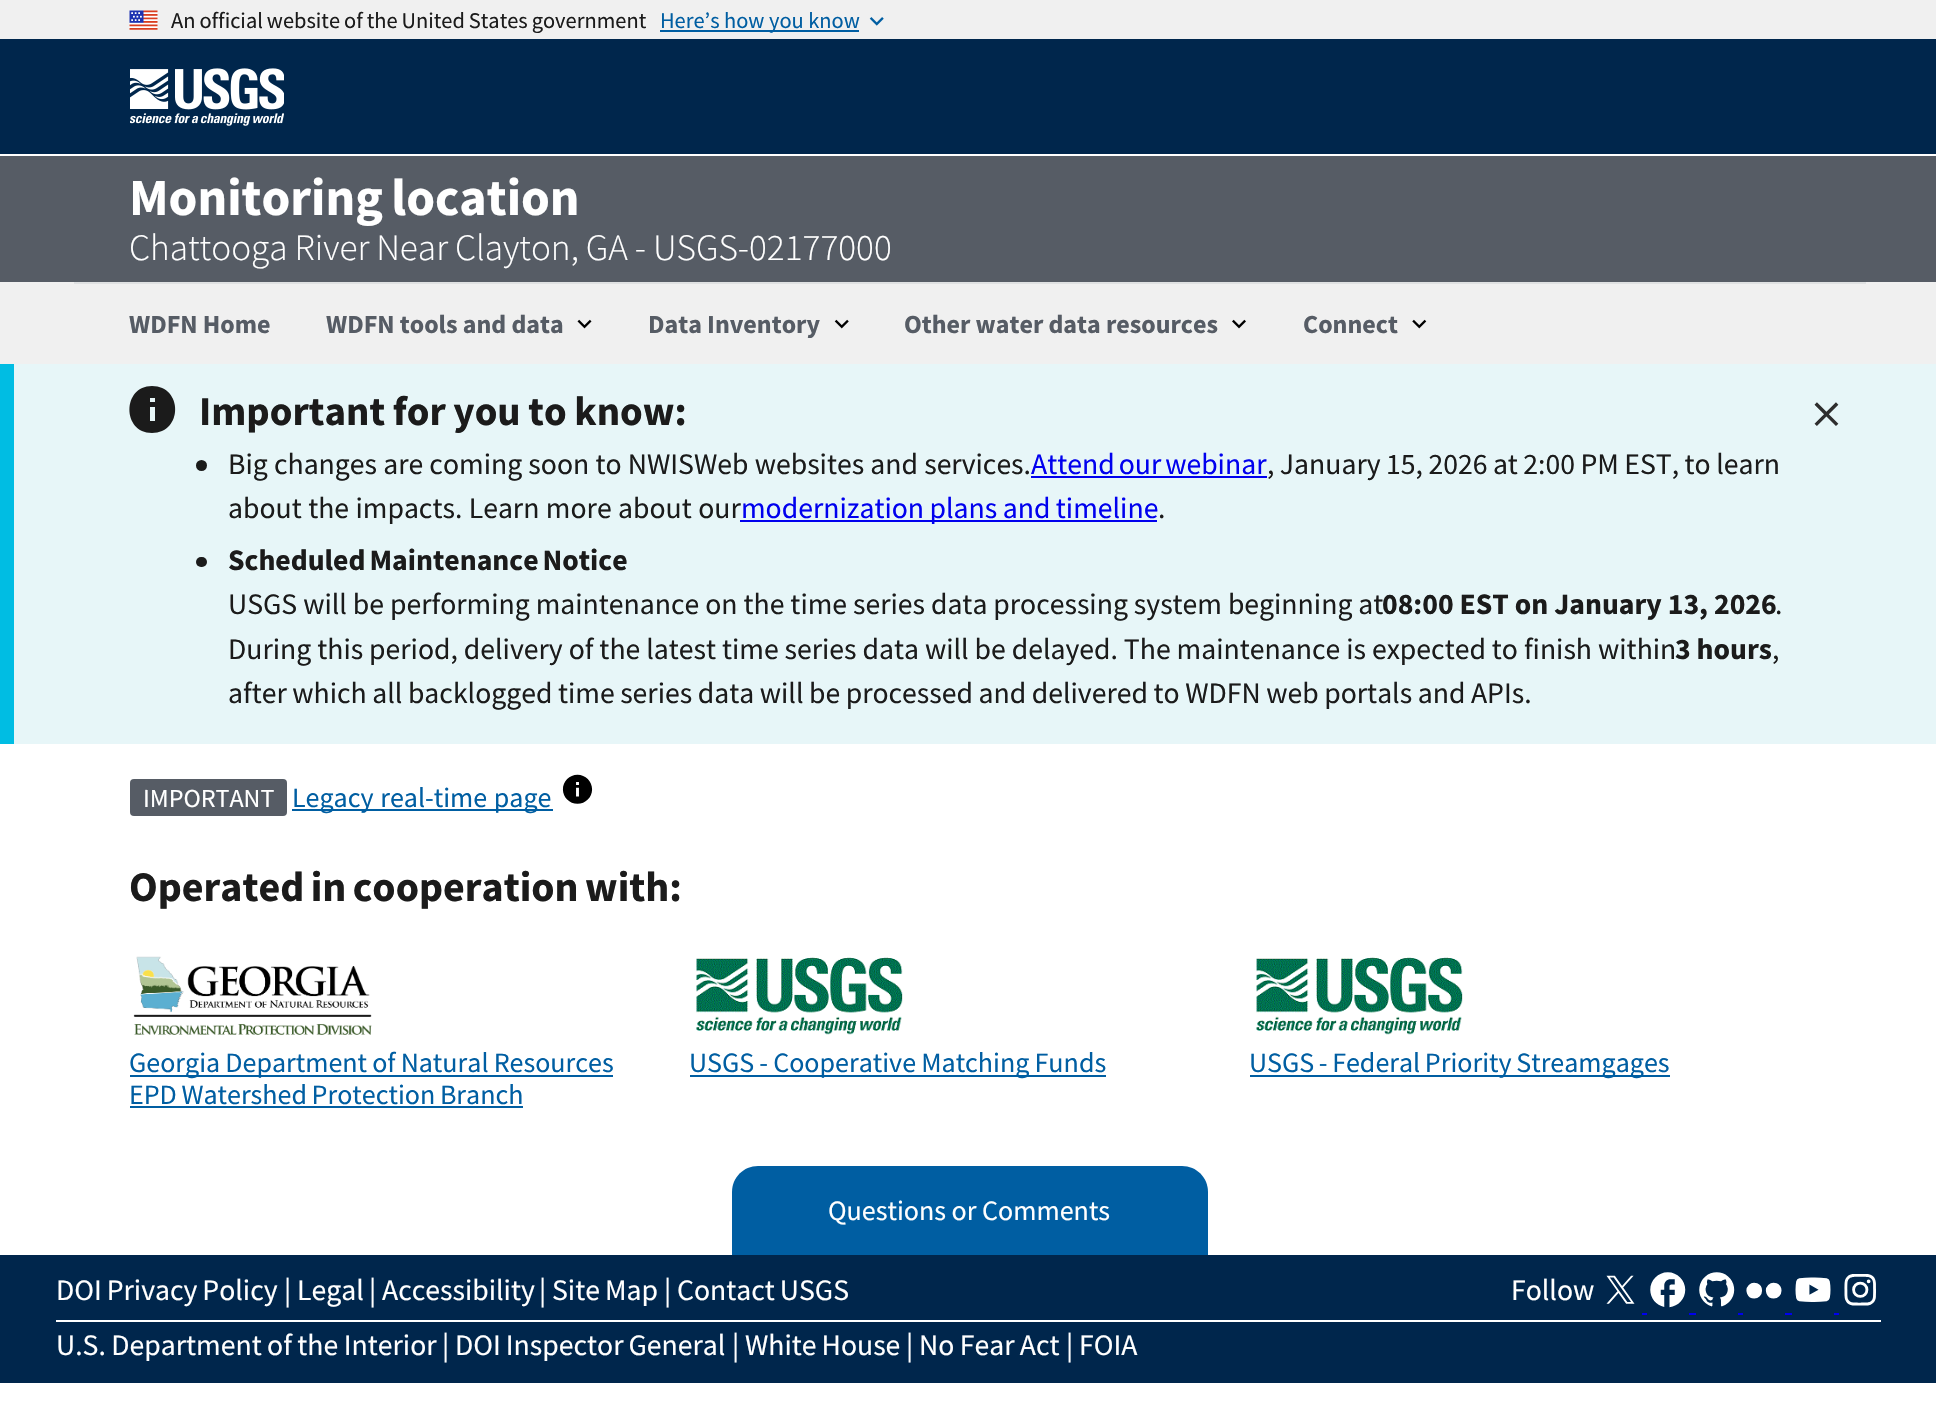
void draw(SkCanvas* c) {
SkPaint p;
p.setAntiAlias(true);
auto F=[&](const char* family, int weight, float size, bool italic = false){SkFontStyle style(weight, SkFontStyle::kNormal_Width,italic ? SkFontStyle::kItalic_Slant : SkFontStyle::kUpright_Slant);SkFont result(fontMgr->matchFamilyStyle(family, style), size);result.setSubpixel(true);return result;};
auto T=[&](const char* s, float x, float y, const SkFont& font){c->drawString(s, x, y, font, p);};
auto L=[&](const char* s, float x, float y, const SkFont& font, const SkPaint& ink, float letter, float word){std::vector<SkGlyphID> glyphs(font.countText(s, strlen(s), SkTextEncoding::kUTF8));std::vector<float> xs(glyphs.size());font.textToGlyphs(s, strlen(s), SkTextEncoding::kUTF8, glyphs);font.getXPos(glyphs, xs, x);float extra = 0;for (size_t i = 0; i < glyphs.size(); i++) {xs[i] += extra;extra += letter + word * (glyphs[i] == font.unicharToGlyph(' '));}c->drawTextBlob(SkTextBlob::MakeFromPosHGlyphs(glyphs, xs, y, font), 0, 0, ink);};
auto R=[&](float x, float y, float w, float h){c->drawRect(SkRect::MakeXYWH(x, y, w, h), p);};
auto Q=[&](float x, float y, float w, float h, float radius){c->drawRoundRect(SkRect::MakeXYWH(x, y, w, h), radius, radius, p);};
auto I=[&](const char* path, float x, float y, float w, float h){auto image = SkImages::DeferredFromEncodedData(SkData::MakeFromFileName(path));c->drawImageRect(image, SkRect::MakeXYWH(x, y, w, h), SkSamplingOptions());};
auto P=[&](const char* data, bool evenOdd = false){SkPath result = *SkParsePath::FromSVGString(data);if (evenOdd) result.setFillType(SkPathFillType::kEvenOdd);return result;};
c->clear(0xffffffff);
p.setColor(0xfff0f0f0);
R(0,0,1936,39);
I("1.png",129,10,29,20);
auto f1 = F("Source Sans Pro",400,22.4);
p.setColor(0xff1b1b1b);
L("An official website of the United States government",171,28,f1,p,0,-.5);
p.setColor(0xff005ea2);
R(660,30,199,2);
T("Here’s how you know",660,28,f1);
I("2.png",869,17,15,9);
p.setColor(0xff00264c);
R(0,39,1936,115);
I("3.png",130,68,154,58);
p.setColor(0xff565c65);
R(0,156,1936,126);
auto f2 = F("Source Sans Pro",700,52);
p.setColor(0xffffffff);
L("Monitoring location",129,215,f2,p,0,-2);
auto f3 = F("Source Sans Pro",300,37.25);
L("Chattooga River Near Clayton, GA - USGS-02177000",129,260,f3,p,0,-.5);
p.setColor(0xfff0f0f0);
R(0,282,1936,82);
p.setColor(0xffdfe1e2);
R(74,282,1792,2);
auto f4 = F("Source Sans Pro",700,26);
p.setColor(0xff565c65);
T("WDFN Home",129,333,f4);
T("WDFN tools and data",326,333,f4);
I("4.png",577,319,15,10);
T("Data Inventory",648,333,f4);
I("5.png",834,319,15,10);
T("Other water data resources",904,333,f4);
I("6.png",1232,319,14,10);
T("Connect",1303,333,f4);
I("7.png",1412,319,15,10);
p.setColor(0xffe7f6f8);
R(14,364,1922,380);
p.setColor(0xff00bde3);
R(0,364,14,380);
p.setColor(0xff1b1b1b);
c->drawPath(P("M152 386c-30 0-30 47 0 47c31 0 31-47 0-47zm3 35h-5v-14h5zm0-19h-5v-4h5z"),p);
auto f5 = F("Source Sans Pro",700,40.9);
L("Important for you to know:",199,425,f5,p,0,-.5);
I("8.png",1814,402,25,24);
c->drawCircle(201.5,465.5,5.5,p);
auto f6 = F("Source Sans Pro",400,29.7);
L("Big changes are coming soon to NWISWeb websites and services.",228,474,f6,p,0,.25);
p.setColor(0xff0000ee);
L("Attend our webinar",1031,474,f6,p,0,-2);
R(1031,476,236,2);
p.setColor(0xff1b1b1b);
L(", January 15, 2026 at 2:00 PM EST, to learn",1267,474,f6,p,0,-.5);
L("about the impacts. Learn more about our",228,518,f6,p,0,.5);
p.setColor(0xff0000ee);
R(740,520,417,2);
L("modernization plans and timeline",741,518,f6,p,0,-.5);
p.setColor(0xff1b1b1b);
T(".",1158,518,f6);
Q(196,557,11,10,5);
auto f7 = F("Source Sans Pro",700,29.7);
L("Scheduled Maintenance Notice",228,570,f7,p,0,-2);
T("USGS will be performing maintenance on the time series data processing system beginning at",228,614,f6);
T("08:00 EST on January 13, 2026",1382,614,f7);
T(".",1775,614,f6);
T("During this period, delivery of the latest time series data will be delayed. The maintenance is expected to finish within",228,659,f6);
T("3 hours",1675,659,f7);
T(",",1772,659,f6);
L("after which all backlogged time series data will be processed and delivered to WDFN web portals and APIs.",228,703,f6,p,0,-.4);
p.setColor(0xff565c65);
Q(130,779,157,37,4);
auto f8 = F("Source Sans Pro",400,26);
p.setColor(0xffffffff);
T("IMPORTANT",143,807,f8);
p.setColor(0xff005ea2);
R(292,809,261,2);
auto f9 = F("Source Sans Pro",400,28);
L("Legacy real-time page",292,807,f9,p,0,1);
I("9.png",562,774,31,30);
auto f10 = F("Source Sans Pro",700,42);
p.setColor(0xff1b1b1b);
L("Operated in cooperation with:",129,901,f10,p,0,-2);
I("10.png",133,956,239,79);
p.setColor(0xff005ea2);
R(130,1075,483,2);
L("Georgia Department of Natural Resources",129,1072,f9,p,0,-.5);
L("EPD Watershed Protection Branch",129,1104,f9,p,0,-1);
R(130,1106,393,2);
I("11.png",696,957,207,78);
R(690,1075,416,2);
L("USGS - Cooperative Matching Funds",689,1072,f9,p,0,-.5);
I("12.png",1256,957,207,78);
R(1250,1075,420,2);
L("USGS - Federal Priority Streamgages",1249,1072,f9,p,0,-1);
c->drawPath(P("M758 1166h424c14.5 0 26 11.5 26 26v63h-476v-63c0-14.5 11.5-26 26-26z"),p);
p.setColor(0xffffffff);
T("Questions or Comments",828,1220,f9);
p.setColor(0xff00264c);
R(0,1255,1936,128);
p.setColor(0xffffffff);
R(56,1320,1825,2);
L("DOI Privacy Policy",56,1300,f6,p,0,-1);
T("| Legal",284,1300,f6);
T("| Accessibility",369,1300,f6);
T("|",539,1300,f6);
L("Site Map",552,1300,f6,p,0,-1);
T("|",664,1300,f6);
L("Contact USGS",677,1300,f6,p,0,-1);
T("Follow",1511,1300,f6);
I("13.png",1606,1275,29,29);
p.setColor(0xff0000ee);
R(1642,1313,5,2);
I("14.png",1650,1272,36,36);
R(1689,1313,7,2);
I("15.png",1699,1272,36,35);
R(1738,1313,5,2);
I("16.png",1746,1282,36,17);
R(1785,1313,7,2);
I("17.png",1795,1277,36,25);
R(1834,1313,5,2);
I("18.png",1844,1274,32,32);
p.setColor(0xffffffff);
L("U.S. Department of the Interior",56,1355,f6,p,0,-.5);
T("|",442,1355,f6);
L("DOI Inspector General",455,1355,f6,p,0,-1);
T("|",732,1355,f6);
L("White House",745,1355,f6,p,0,-1);
T("|",906,1355,f6);
L("No Fear Act",919,1355,f6,p,0,-.5);
T("| FOIA",1066,1355,f6);
}
